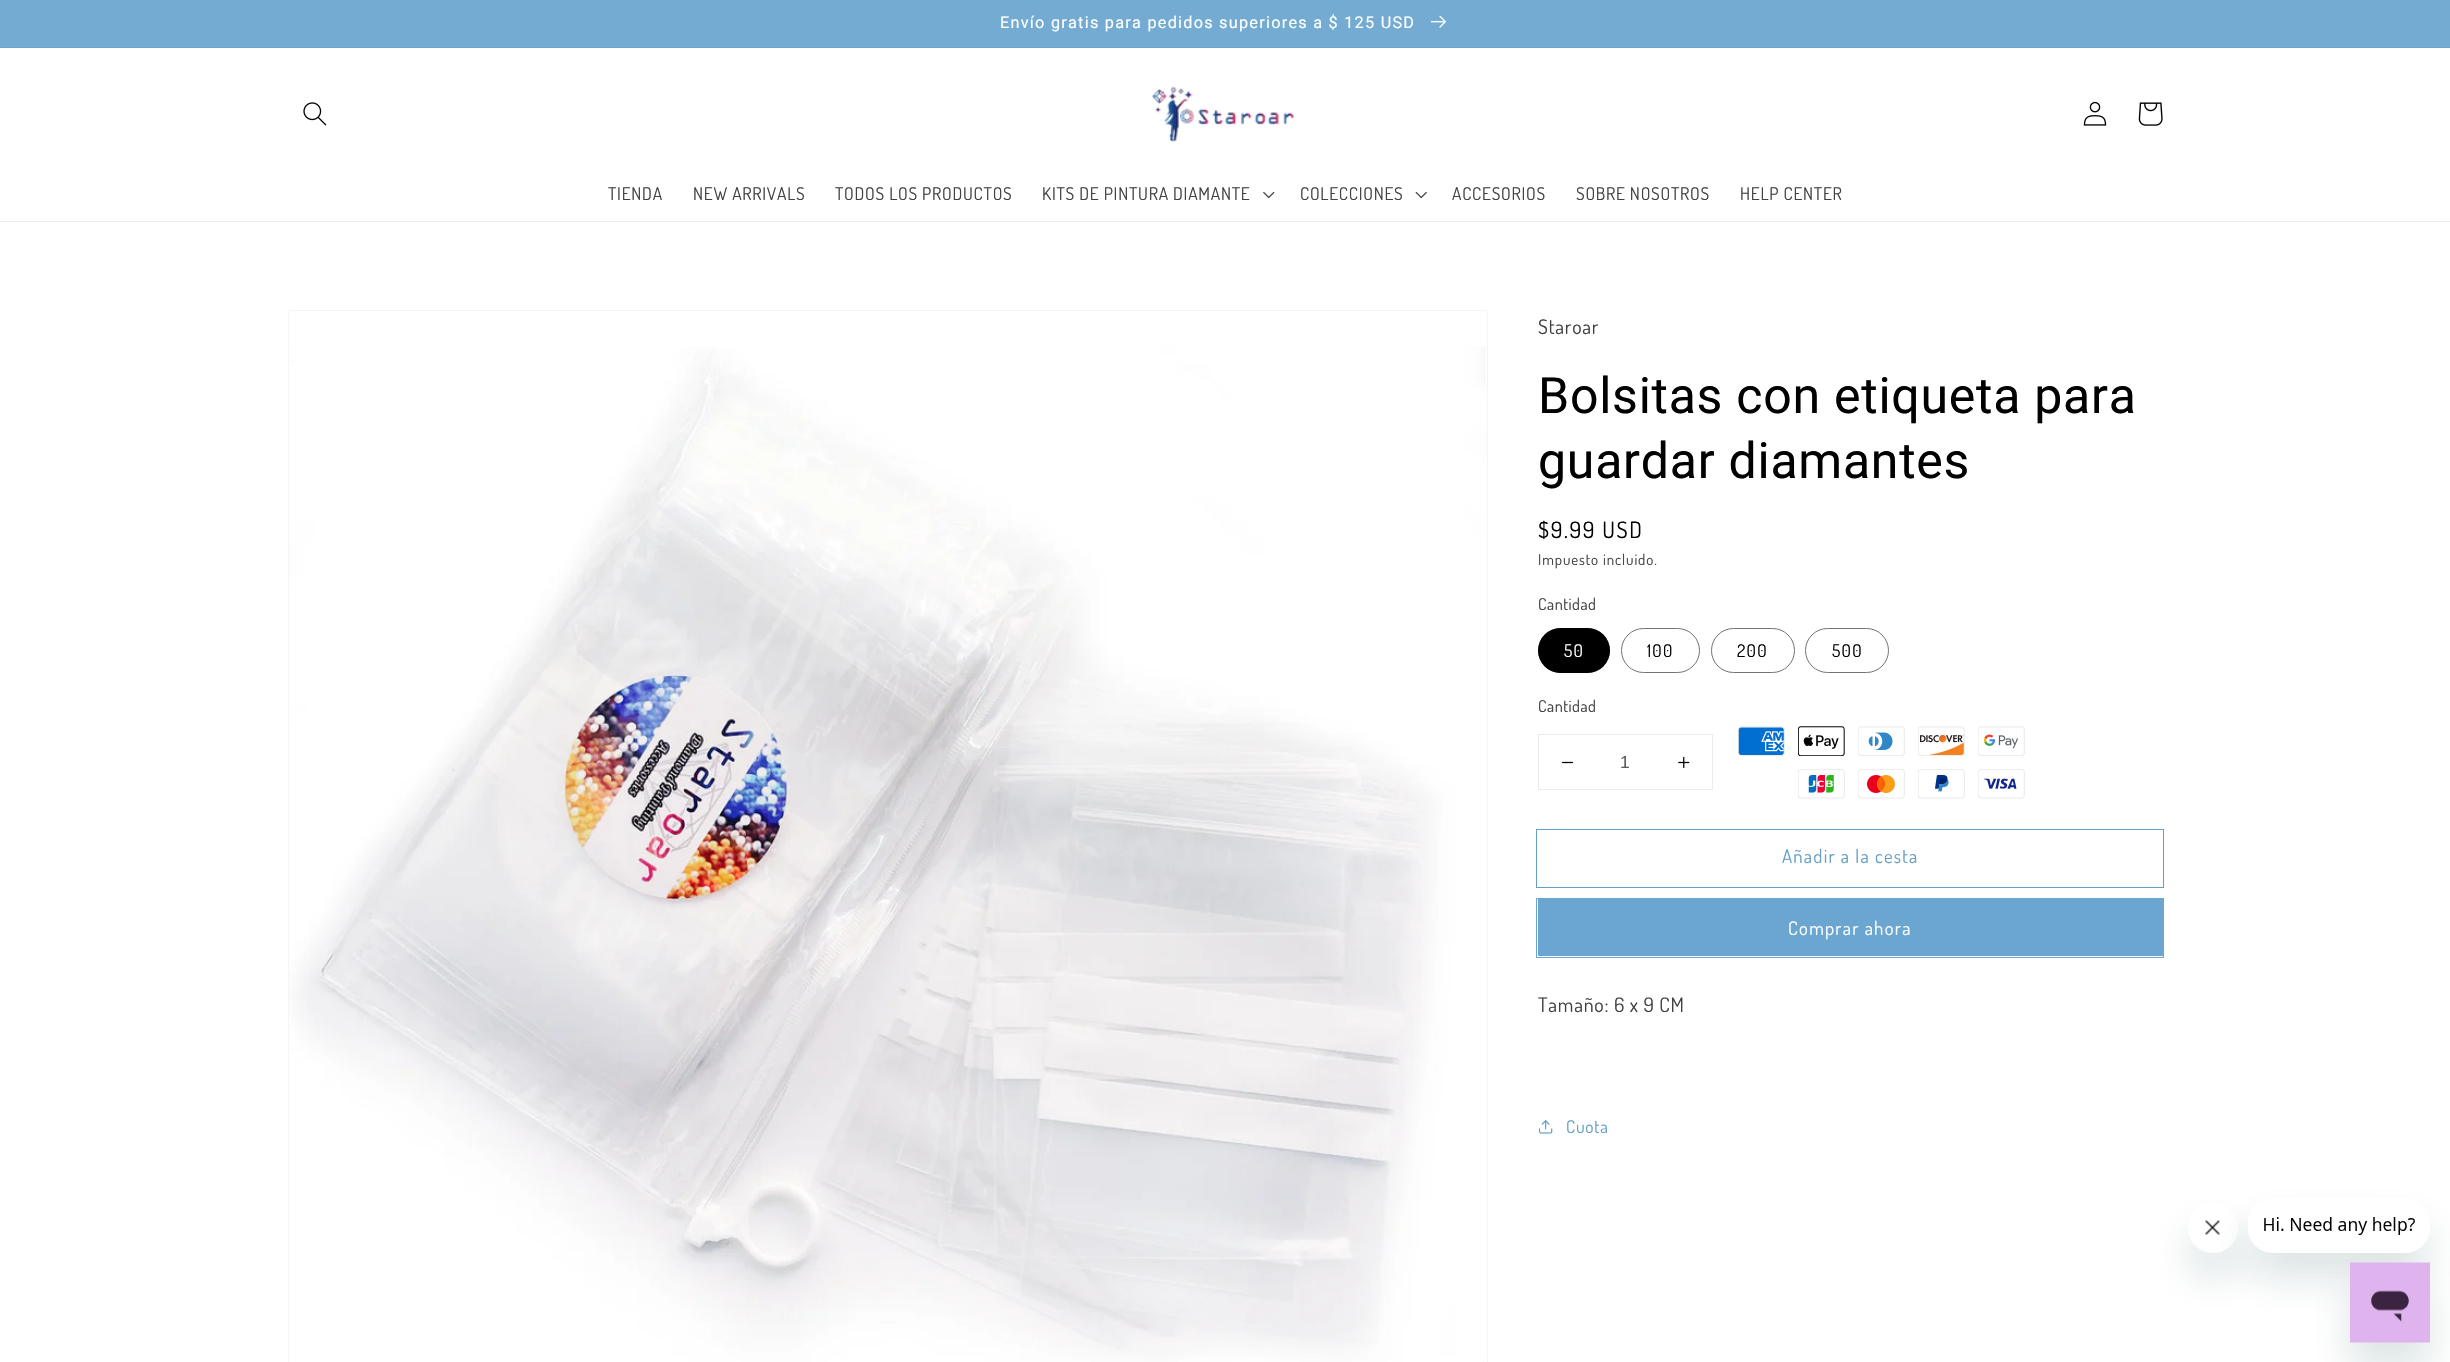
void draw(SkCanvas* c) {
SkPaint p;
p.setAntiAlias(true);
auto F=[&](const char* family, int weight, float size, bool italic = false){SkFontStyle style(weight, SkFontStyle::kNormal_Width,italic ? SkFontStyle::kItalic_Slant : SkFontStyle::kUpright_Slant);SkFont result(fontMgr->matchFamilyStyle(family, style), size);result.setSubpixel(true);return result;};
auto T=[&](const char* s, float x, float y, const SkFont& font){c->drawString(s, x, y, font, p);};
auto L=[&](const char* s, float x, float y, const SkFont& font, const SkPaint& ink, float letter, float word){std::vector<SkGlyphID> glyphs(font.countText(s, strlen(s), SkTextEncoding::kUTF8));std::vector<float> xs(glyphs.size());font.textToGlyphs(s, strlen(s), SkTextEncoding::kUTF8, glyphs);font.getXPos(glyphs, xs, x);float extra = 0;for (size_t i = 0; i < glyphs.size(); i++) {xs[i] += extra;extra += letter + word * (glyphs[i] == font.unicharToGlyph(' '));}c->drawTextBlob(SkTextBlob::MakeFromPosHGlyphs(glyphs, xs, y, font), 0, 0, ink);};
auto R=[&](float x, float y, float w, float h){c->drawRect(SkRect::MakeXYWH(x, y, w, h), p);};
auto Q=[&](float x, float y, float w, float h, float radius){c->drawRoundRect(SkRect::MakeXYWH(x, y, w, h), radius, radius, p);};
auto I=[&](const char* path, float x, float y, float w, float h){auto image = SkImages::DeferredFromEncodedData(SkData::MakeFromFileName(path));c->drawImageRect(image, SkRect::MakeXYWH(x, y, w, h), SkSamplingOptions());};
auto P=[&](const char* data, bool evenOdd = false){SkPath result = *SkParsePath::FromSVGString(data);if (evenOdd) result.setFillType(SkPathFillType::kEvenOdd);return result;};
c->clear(0xffffffff);
p.setColor(0xff6aa6cf);
R(0,47,2450,1);
p.setColor(0xff76add3);
R(0,46,2450,1);
p.setColor(0xff73abd2);
R(0,0,2450,46);
auto f1 = F("Roboto",400,16.25);
p.setColor(0xffffffff);
L("Envío gratis para pedidos superiores a $ 125 USD",1000,28,f1,p,1.25,0);
I("1.png",1431,15,15,13);
p.setColor(0xffebebeb);
R(0,221,2450,1);
I("2.png",303,102,24,24);
I("3.png",1152,86,142,56);
I("4.png",2083,101,24,25);
I("5.png",2138,102,25,24);
auto f2 = F("Dosis",400,17.5);
p.setColor(0xff404040);
L("TIENDA",608,200,f2,p,.75,0);
L("NEW ARRIVALS",693,200,f2,p,.75,0);
L("TODOS LOS PRODUCTOS",835,200,f2,p,.75,0);
L("KITS DE PINTURA DIAMANTE",1042,200,f2,p,.75,0);
I("6.png",1263,191,12,8);
L("COLECCIONES",1300,200,f2,p,.75,0);
I("7.png",1415,191,12,8);
L("ACCESORIOS",1452,200,f2,p,.75,0);
L("SOBRE NOSOTROS",1576,200,f2,p,.75,0);
L("HELP CENTER",1740,200,f2,p,.75,0);
p.setStroke(true);
p.setStrokeWidth(1);
p.setColor(0xfff5f5f5);
c->drawRect(SkRect::MakeXYWH(288.5,310.5,1199,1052),p);
I("8.png",289,346,1197,1016);
auto f3 = F("Dosis",400,20);
p.setStroke(false);
p.setColor(0xff404040);
L("Staroar",1538,334,f3,p,.75,0);
auto f4 = F("Roboto",400,50);
p.setColor(0xff000000);
L("Bolsitas con etiqueta para",1538,413,f4,p,.75,0);
L("guardar diamantes",1538,478,f4,p,.75,0);
auto f5 = F("Dosis",400,22.5);
L("$9.99 USD",1538,538,f5,p,1.6,0);
auto f6 = F("Dosis",400,15);
p.setColor(0xff404040);
L("Impuesto incluido.",1538,565,f6,p,.9,0);
auto f7 = F("Dosis",400,16.25);
L("Cantidad",1538,610,f7,p,.5,0);
p.setColor(0xff000000);
Q(1538,628,72,45,22.5);
p.setStroke(true);
p.setColor(0x8c000000);
c->drawRoundRect(SkRect::MakeXYWH(1538.5,628.5,71,44),22,22,p);
p.setStroke(false);
p.setColor(0xffffffff);
L("50",1564,657,f2,p,1.25,0);
p.setStroke(true);
p.setColor(0xff737373);
c->drawRoundRect(SkRect::MakeXYWH(1621.5,628.5,78,44),22,22,p);
p.setStroke(false);
p.setColor(0xff000000);
L("100",1647,657,f2,p,1.25,0);
p.setStroke(true);
p.setColor(0xff737373);
c->drawRoundRect(SkRect::MakeXYWH(1711.5,628.5,83,44),22,22,p);
p.setStroke(false);
p.setColor(0xff000000);
L("200",1737,657,f2,p,1.25,0);
p.setStroke(true);
p.setColor(0xff737373);
c->drawRoundRect(SkRect::MakeXYWH(1805.5,628.5,83,44),22,22,p);
p.setStroke(false);
p.setColor(0xff000000);
L("500",1832,657,f2,p,1.25,0);
p.setColor(0xff404040);
L("Cantidad",1538,712,f7,p,.5,0);
p.setStroke(true);
p.setColor(0xffebebeb);
c->drawRect(SkRect::MakeXYWH(1538.5,734.5,174,55),p);
I("9.png",1561,761,13,3);
auto f8 = F("Liberation Sans",400,17.5);
p.setStroke(false);
p.setColor(0xff5c5c5c);
T("1",1620,768,f8);
I("10.png",1678,756,12,13);
I("11.png",1738,726,47,30);
I("12.png",1798,726,47,30);
I("13.png",1858,726,47,30);
I("14.png",1918,726,47,30);
I("15.png",1978,726,47,30);
I("16.png",1798,769,47,30);
I("17.png",1858,769,47,30);
I("18.png",1918,769,47,30);
I("19.png",1978,769,47,30);
p.setStroke(true);
p.setColor(0xff659fc6);
c->drawRect(SkRect::MakeXYWH(1536.5,829.5,627,58),p);
auto f9 = F("Dosis",400,18.75);
p.setStroke(false);
L("Añadir a la cesta",1782,863,f9,p,1.25,0);
p.setStroke(true);
p.setColor(0xff6aa6cf);
c->drawRect(SkRect::MakeXYWH(1536.5,898.5,627,59),p);
p.setStroke(false);
R(1538,899,625,57);
p.setColor(0xffffffff);
L("Comprar ahora",1788,935,f9,p,1.25,0);
p.setColor(0xff404040);
L("Tamaño: 6 x 9 CM",1538,1012,f3,p,.75,0);
I("20.png",1538,1120,15,14);
p.setColor(0xff659fc6);
L("Cuota",1566,1133,f2,p,.75,0);
c->save();
c->clipPath(P("M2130 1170h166v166h-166zm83 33c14 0 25 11 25 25c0 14-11 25-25 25c-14 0-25-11-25-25c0-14 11-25 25-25z",true),true);
p.setColor(0x2617494d);
p.setMaskFilter(SkMaskFilter::MakeBlur(kNormal_SkBlurStyle, 19));
c->drawRoundRect(SkRect::MakeXYWH(2188,1228,50,50),25,25,p);
p.setMaskFilter(nullptr);
c->restore();
I("22.png",2205,1220,15,33);
c->save();
c->clipPath(P("M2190 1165h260v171h-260zm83 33h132c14 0 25 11 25 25v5c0 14-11 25-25 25h-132c-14 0-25-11-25-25v-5c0-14 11-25 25-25z",true),true);
p.setMaskFilter(SkMaskFilter::MakeBlur(kNormal_SkBlurStyle, 19));
c->drawRoundRect(SkRect::MakeXYWH(2248,1223,182,55),25,25,p);
p.setMaskFilter(nullptr);
c->restore();
I("21.png",2248,1217,167,29);
p.setMaskFilter(SkMaskFilter::MakeBlur(kNormal_SkBlurStyle, 19));
c->drawRect(SkRect::MakeXYWH(2350,1288,80,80),p);
p.setMaskFilter(nullptr);
I("23.png",2350,1262,80,81);
}
